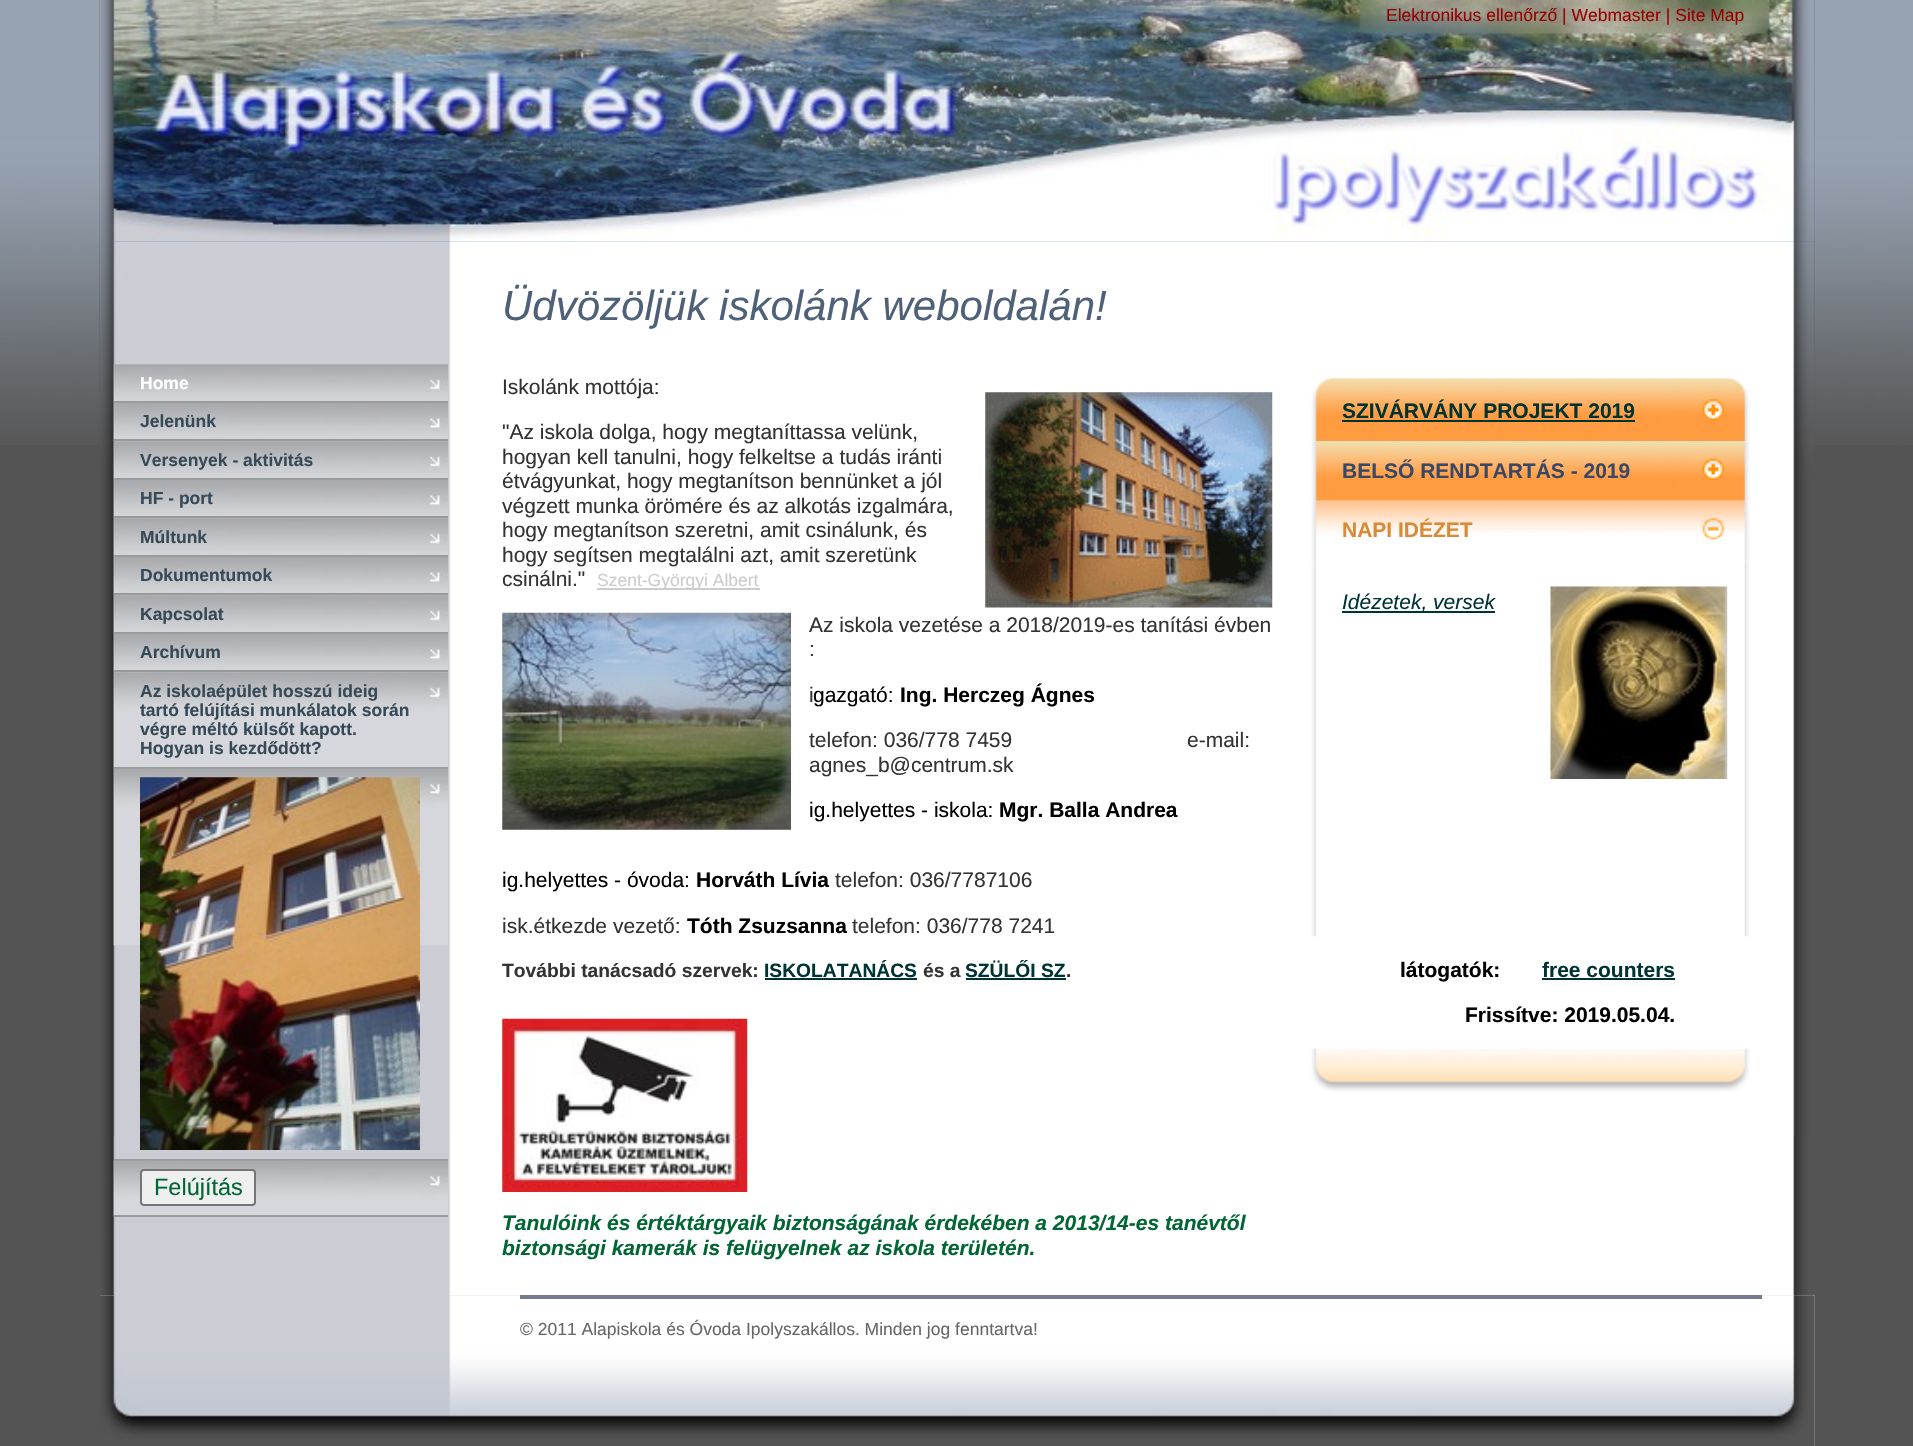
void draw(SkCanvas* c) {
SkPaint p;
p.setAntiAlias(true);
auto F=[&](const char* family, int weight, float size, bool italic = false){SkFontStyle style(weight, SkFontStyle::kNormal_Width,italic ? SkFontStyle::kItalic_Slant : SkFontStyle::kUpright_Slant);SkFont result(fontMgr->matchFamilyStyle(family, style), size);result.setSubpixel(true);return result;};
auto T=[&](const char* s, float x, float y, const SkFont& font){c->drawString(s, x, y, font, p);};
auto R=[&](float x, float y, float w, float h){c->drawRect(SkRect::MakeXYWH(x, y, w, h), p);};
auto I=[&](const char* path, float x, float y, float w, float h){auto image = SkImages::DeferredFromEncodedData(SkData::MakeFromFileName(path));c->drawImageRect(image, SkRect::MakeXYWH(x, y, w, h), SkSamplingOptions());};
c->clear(0xff545454);
I("1.png",0,0,1913,445);
I("2.png",99,0,1716,1446);
p.setColor(0xff4971a2);
R(100,0,1715,242);
I("3.png",99,0,1716,242);
auto f1 = F("Liberation Sans",400,17.5);
p.setColor(0xff990000);
T("Elektronikus ellenőrző | Webmaster | Site Map",1386,21,f1);
I("13.png",100,241,1715,895);
I("4.png",113,364,335,39);
p.setColor(0xff999999);
R(114,401,334,2);
auto f2 = F("Liberation Sans",700,17.5);
p.setColor(0xffffffff);
T("Home",140,389,f2);
I("5.png",113,402,335,40);
p.setColor(0xff999999);
R(114,439,334,2);
p.setColor(0xff364957);
T("Jelenünk",140,427,f2);
I("6.png",113,441,335,39);
p.setColor(0xff999999);
R(114,478,334,2);
p.setColor(0xff364957);
T("Versenyek - aktivitás",140,466,f2);
I("7.png",113,479,335,40);
p.setColor(0xff999999);
R(114,516,334,2);
p.setColor(0xff364957);
T("HF - port",140,504,f2);
I("8.png",113,518,335,39);
p.setColor(0xff999999);
R(114,555,334,2);
p.setColor(0xff364957);
T("Múltunk",140,543,f2);
I("7.png",113,556,335,40);
p.setColor(0xff999999);
R(114,593,334,2);
p.setColor(0xff364957);
T("Dokumentumok",140,581,f2);
I("8.png",113,595,335,39);
p.setColor(0xff999999);
R(114,632,334,2);
p.setColor(0xff364957);
T("Kapcsolat",140,620,f2);
I("7.png",113,633,335,40);
p.setColor(0xff999999);
R(114,670,334,2);
p.setColor(0xff364957);
T("Archívum",140,658,f2);
I("9.png",113,672,335,97);
p.setColor(0xff999999);
R(114,767,334,2);
p.setColor(0xff364957);
T("Az iskolaépület hosszú ideig",140,697,f2);
T("tartó felújítási munkálatok során",140,716,f2);
T("végre méltó külsőt kapott.",140,735,f2);
T("Hogyan is kezdődött?",140,754,f2);
I("10.png",113,768,335,178);
p.setColor(0xff999999);
R(114,1159,334,2);
I("11.png",140,777,280,373);
I("12.png",113,1160,335,57);
R(114,1215,334,2);
p.setColor(0xffefefef);
c->drawRoundRect(SkRect::MakeXYWH(141,1170,114,35),3,3,p);
p.setStroke(true);
p.setStrokeWidth(2);
p.setColor(0xff767676);
c->drawRoundRect(SkRect::MakeXYWH(141,1170,114,35),3,3,p);
auto f3 = F("Liberation Sans",400,23.5);
p.setStroke(false);
p.setColor(0xff006633);
T("Felújítás",154,1195,f3);
auto f4 = F("Liberation Sans",400,42,true);
p.setColor(0xff4f6179);
T("Üdvözöljük iskolánk weboldalán!",502,320,f4);
auto f5 = F("Liberation Sans",400,21);
p.setColor(0xff333333);
T("Iskolánk mottója:",502,394,f5);
T("\"Az iskola dolga, hogy megtaníttassa velünk,",502,439,f5);
T("hogyan kell tanulni, hogy felkeltse a tudás iránti",502,464,f5);
T("étvágyunkat, hogy megtanítson bennünket a jól",502,488,f5);
T("végzett munka örömére és az alkotás izgalmára,",502,513,f5);
T("hogy megtanítson szeretni, amit csinálunk, és",502,537,f5);
T("hogy segítsen megtalálni azt, amit szeretünk",502,562,f5);
T("csinálni.\"",502,586,f5);
p.setColor(0xffcccccc);
R(597,588,163,2);
T("Szent-Györgyi Albert",597,586,f1);
I("14.png",985,392,288,216);
I("15.png",502,612,289,218);
p.setColor(0xff333333);
T("Az iskola vezetése a 2018/2019-es tanítási évben",809,632,f5);
T(":",809,656,f5);
T("i",809,702,f5);
p.setColor(0xff000000);
T("gazgató:",813,702,f5);
auto f6 = F("Liberation Sans",700,21);
T("Ing. Herczeg Ágnes",900,702,f6);
p.setColor(0xff333333);
T("telefon: 036/778 7459",809,747,f5);
T("e-mail:",1187,747,f5);
T("agnes_b@centrum.sk",809,772,f5);
p.setColor(0xff000000);
T("ig.helyettes - iskola:",809,817,f5);
T("Mgr. Balla Andrea",999,817,f6);
T("ig.helyettes - óvoda:",502,887,f5);
T("Horváth Lívia",696,887,f6);
p.setColor(0xff333333);
T("telefon: 036/7787106",835,887,f5);
T("isk.étkezde vezető:",502,933,f5);
p.setColor(0xff000000);
T("Tóth Zsuzsanna",687,933,f6);
p.setColor(0xff333333);
T("telefon: 036/778 7241",852,933,f5);
auto f7 = F("Liberation Sans",700,19.25);
T("További tanácsadó szervek:",502,977,f7);
p.setColor(0xff003333);
T("ISKOLATANÁCS",764,977,f7);
R(765,978,152,2);
p.setColor(0xff333333);
T("és a",923,977,f7);
p.setColor(0xff003333);
T("SZÜLŐI SZ",965,977,f7);
R(966,978,100,2);
p.setColor(0xff333333);
T(".",1066,977,f7);
I("16.png",502,1018,246,174);
auto f8 = F("Liberation Sans",700,21,true);
p.setColor(0xff006633);
T("Tanulóink és értéktárgyaik biztonságának érdekében a 2013/14-es tanévtől",502,1230,f8);
T("biztonsági kamerák is felügyelnek az iskola területén.",502,1255,f8);
I("17.png",1311,377,439,65);
p.setColor(0xff003333);
T("SZIVÁRVÁNY PROJEKT 2019",1342,418,f6);
R(1342,420,293,2);
I("18.png",1311,441,439,60);
p.setColor(0xff394867);
T("BELSŐ RENDTARTÁS - 2019",1342,478,f6);
I("19.png",1311,500,439,61);
p.setColor(0xffd88a37);
T("NAPI IDÉZET",1342,537,f6);
I("20.png",1311,560,438,377);
p.setColor(0xff003333);
R(1342,611,153,2);
auto f9 = F("Liberation Sans",400,21,true);
T("Idézetek, versek",1342,609,f9);
I("21.png",1550,586,178,193);
p.setColor(0xff000000);
T("látogatók:",1400,977,f6);
p.setColor(0xff003333);
T("free counters",1542,977,f6);
R(1542,978,133,2);
p.setColor(0xff000000);
T("Frissítve: 2019.05.04.",1465,1022,f6);
I("22.png",1311,1048,439,44);
p.setColor(0xffcfcfcf);
R(100,1295,1715,151);
I("23.png",100,1295,1715,151);
p.setColor(0xff737a90);
R(520,1295,1242,4);
p.setColor(0xff666666);
T("© 2011 Alapiskola és Óvoda Ipolyszakállos. Minden jog fenntartva!",520,1335,f1);
}
